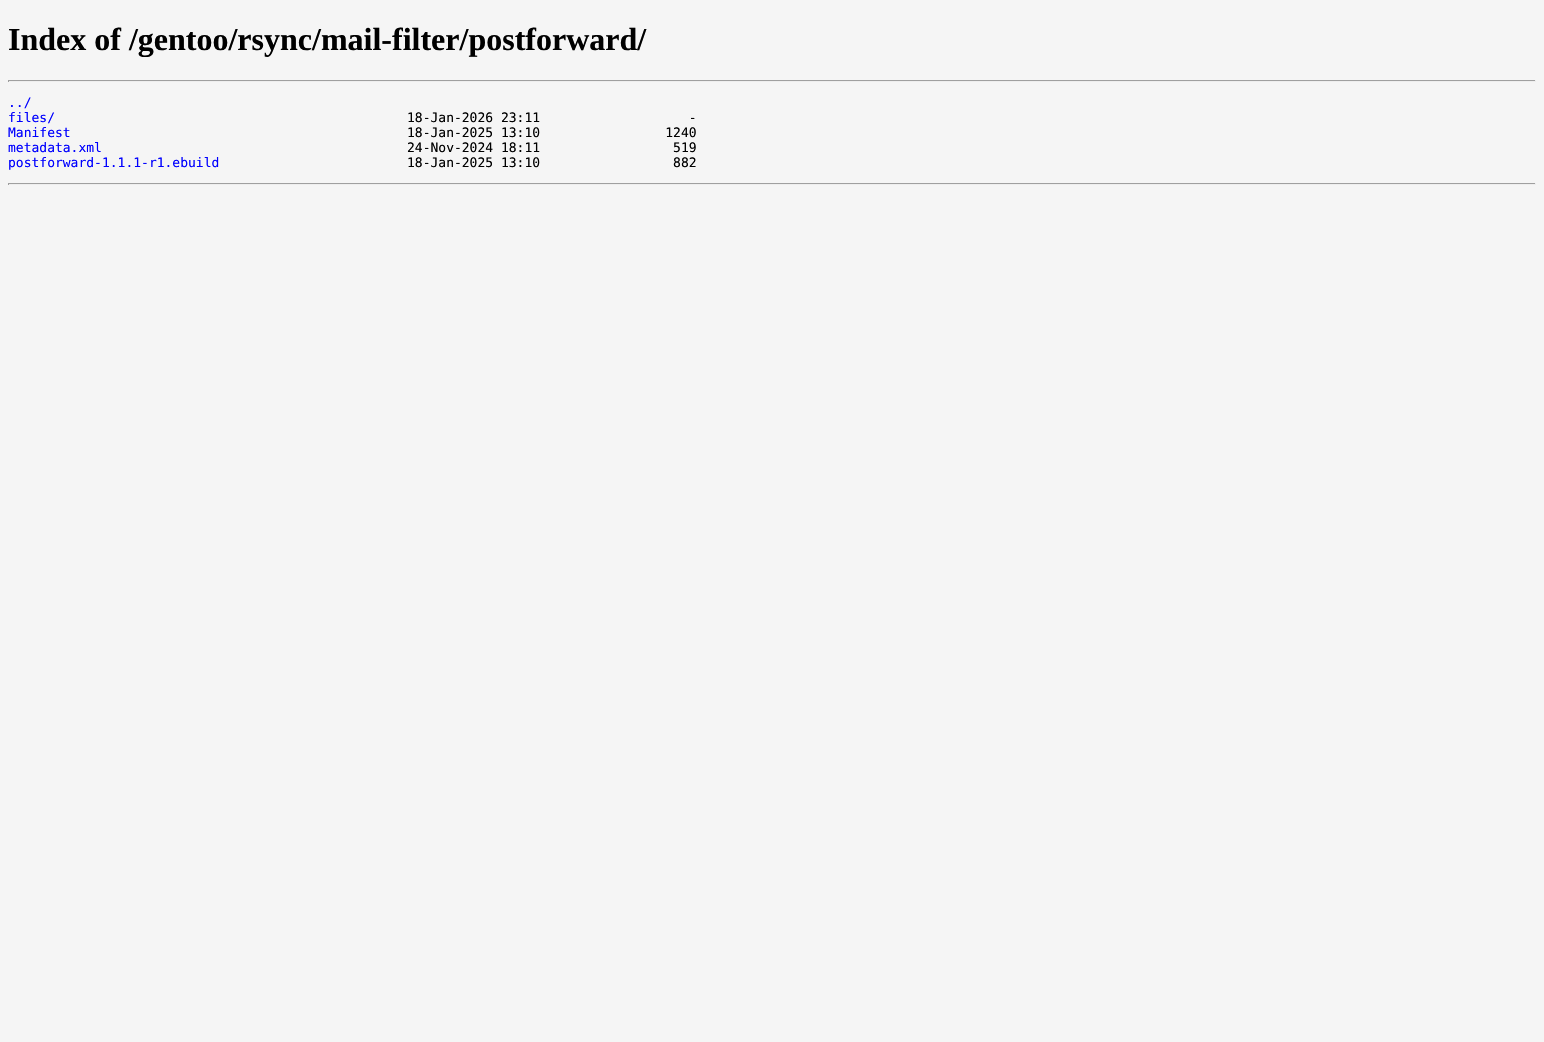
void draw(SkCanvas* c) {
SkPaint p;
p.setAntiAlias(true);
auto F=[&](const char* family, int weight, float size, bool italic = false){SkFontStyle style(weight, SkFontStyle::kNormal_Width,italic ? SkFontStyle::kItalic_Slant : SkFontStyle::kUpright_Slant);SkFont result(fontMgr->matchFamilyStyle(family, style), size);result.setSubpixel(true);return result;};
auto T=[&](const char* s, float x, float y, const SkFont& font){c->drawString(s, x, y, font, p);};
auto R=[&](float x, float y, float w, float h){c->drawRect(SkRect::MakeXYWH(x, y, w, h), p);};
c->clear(0xfff5f5f5);
auto f1 = F("Liberation Serif",700,32);
p.setColor(0xff000000);
T("Index of /gentoo/rsync/mail-filter/postforward/",8,50,f1);
p.setColor(0xff9f9f9f);
R(8,80,1528,1);
p.setColor(0xffeeeeee);
R(1535,80,1,2);
R(8,81,1528,1);
p.setColor(0xff9f9f9f);
R(8,80,1,2);
auto f2 = F("DejaVu Sans Mono",400,13);
p.setColor(0xff0000ff);
T("../",8,107,f2);
T("files/",8,122,f2);
p.setColor(0xff000000);
T("18-Jan-2026 23:11                   -",407,122,f2);
p.setColor(0xff0000ff);
T("Manifest",8,137,f2);
p.setColor(0xff000000);
T("18-Jan-2025 13:10                1240",407,137,f2);
p.setColor(0xff0000ff);
T("metadata.xml",8,152,f2);
p.setColor(0xff000000);
T("24-Nov-2024 18:11                 519",407,152,f2);
p.setColor(0xff0000ff);
T("postforward-1.1.1-r1.ebuild",8,167,f2);
p.setColor(0xff000000);
T("18-Jan-2025 13:10                 882",407,167,f2);
p.setColor(0xff9f9f9f);
R(8,183,1528,1);
p.setColor(0xffeeeeee);
R(1535,183,1,2);
R(8,184,1528,1);
p.setColor(0xff9f9f9f);
R(8,183,1,2);
}
